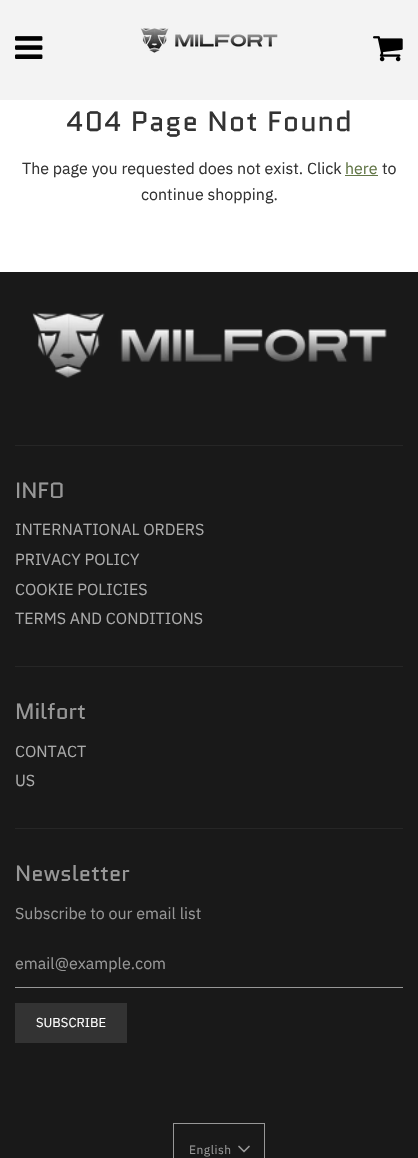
void draw(SkCanvas* c) {
SkPaint p;
p.setAntiAlias(true);
auto F=[&](const char* family, int weight, float size, bool italic = false){SkFontStyle style(weight, SkFontStyle::kNormal_Width,italic ? SkFontStyle::kItalic_Slant : SkFontStyle::kUpright_Slant);SkFont result(fontMgr->matchFamilyStyle(family, style), size);result.setSubpixel(true);return result;};
auto T=[&](const char* s, float x, float y, const SkFont& font){c->drawString(s, x, y, font, p);};
auto L=[&](const char* s, float x, float y, const SkFont& font, const SkPaint& ink, float letter, float word){std::vector<SkGlyphID> glyphs(font.countText(s, strlen(s), SkTextEncoding::kUTF8));std::vector<float> xs(glyphs.size());font.textToGlyphs(s, strlen(s), SkTextEncoding::kUTF8, glyphs);font.getXPos(glyphs, xs, x);float extra = 0;for (size_t i = 0; i < glyphs.size(); i++) {xs[i] += extra;extra += letter + word * (glyphs[i] == font.unicharToGlyph(' '));}c->drawTextBlob(SkTextBlob::MakeFromPosHGlyphs(glyphs, xs, y, font), 0, 0, ink);};
auto R=[&](float x, float y, float w, float h){c->drawRect(SkRect::MakeXYWH(x, y, w, h), p);};
auto I=[&](const char* path, float x, float y, float w, float h){auto image = SkImages::DeferredFromEncodedData(SkData::MakeFromFileName(path));c->drawImageRect(image, SkRect::MakeXYWH(x, y, w, h), SkSamplingOptions());};
auto P=[&](const char* data, bool evenOdd = false){SkPath result = *SkParsePath::FromSVGString(data);if (evenOdd) result.setFillType(SkPathFillType::kEvenOdd);return result;};
c->clear(0xffffffff);
p.setColor(0xfff3f3f3);
R(0,0,418,100);
I("1.png",15,36,28,23);
I("2.png",140,28,138,25);
I("3.png",373,36,30,26);
auto f1 = F("Quantico",400,28);
p.setColor(0xff333333);
L("404 Page Not Found",66,131,f1,p,1,0);
auto f2 = F("IBM Plex Sans",400,16);
T("The page you requested does not exist. Click",22,174,f2);
p.setColor(0xff627647);
T("here",345,174,f2);
R(345,175,33,1);
p.setColor(0xff333333);
T("to",382,174,f2);
T("continue shopping.",141,200,f2);
p.setColor(0xff191919);
R(0,272,418,886);
I("4.png",32,312,355,66);
p.setColor(0xff262626);
R(15,445,388,1);
auto f3 = F("Quantico",400,22);
p.setColor(0xff979797);
T("INFO",15,498,f3);
p.setColor(0xffaaaaaa);
T("INTERNATIONAL ORDERS",15,535,f2);
T("PRIVACY POLICY",15,565,f2);
T("COOKIE POLICIES",15,595,f2);
T("TERMS AND CONDITIONS",15,624,f2);
p.setColor(0xff262626);
R(15,666,388,1);
p.setColor(0xff979797);
T("Milfort",15,719,f3);
p.setColor(0xffaaaaaa);
T("CONTACT",15,757,f2);
T("US",15,786,f2);
p.setColor(0xff262626);
R(15,828,388,1);
p.setColor(0xff979797);
T("Newsletter",15,881,f3);
T("Subscribe to our email list",15,919,f2);
R(15,987,388,1);
T("email@example.com",15,969,f2);
p.setColor(0xff333333);
R(15,1003,112,40);
auto f4 = F("IBM Plex Sans",400,13);
p.setColor(0xffffffff);
T("SUBSCRIBE",36,1027,f4);
p.setStroke(true);
p.setStrokeWidth(1);
p.setColor(0xff979797);
c->drawRect(SkRect::MakeXYWH(173.5,1123.5,91,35),p);
auto f5 = F("IBM Plex Sans",400,12);
p.setStroke(false);
L("English",189,1154,f5,p,.5,0);
p.setStroke(true);
p.setStrokeWidth(1.7);
p.setStrokeCap(SkPaint::kRound_Cap);
p.setStrokeJoin(SkPaint::kRound_Join);
c->drawPath(P("M239 1146.5l5 5l5-5"),p);
}
